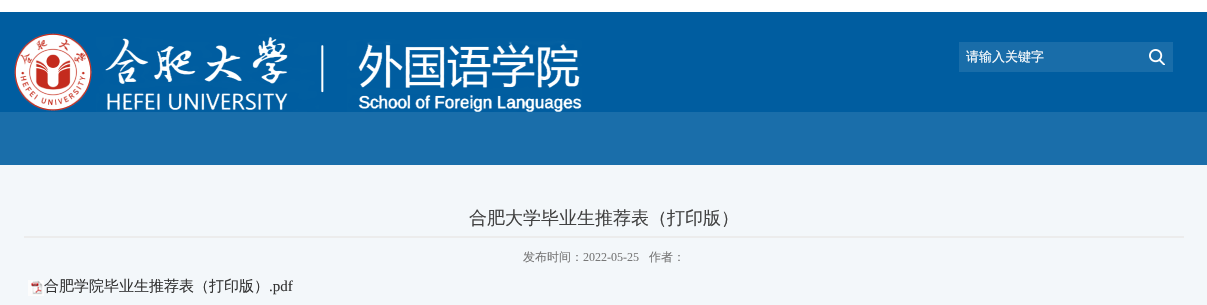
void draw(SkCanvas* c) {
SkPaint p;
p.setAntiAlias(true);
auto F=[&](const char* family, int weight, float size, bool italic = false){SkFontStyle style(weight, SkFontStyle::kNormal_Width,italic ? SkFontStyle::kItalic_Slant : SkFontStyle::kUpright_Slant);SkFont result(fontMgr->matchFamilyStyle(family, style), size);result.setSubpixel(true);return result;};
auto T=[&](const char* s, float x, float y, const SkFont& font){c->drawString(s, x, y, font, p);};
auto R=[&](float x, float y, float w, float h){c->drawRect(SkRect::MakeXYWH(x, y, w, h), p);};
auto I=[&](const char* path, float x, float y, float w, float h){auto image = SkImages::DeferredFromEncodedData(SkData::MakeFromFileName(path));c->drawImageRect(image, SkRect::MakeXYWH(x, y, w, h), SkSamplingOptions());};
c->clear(0xffffffff);
p.setColor(0xff005da0);
R(0,12,1207,100);
I("1.png",14,33,568,79);
I("2.png",959,42,214,30);
auto f1 = F("WenQuanYi Zen Hei",500,13);
p.setColor(0xffffffff);
T("请输入关键字",966,61,f1);
p.setColor(0xff1a6eaa);
R(0,112,1207,53);
p.setColor(0xfff3f7fa);
R(0,165,1207,140);
p.setColor(0xffececec);
R(24,236,1160,2);
auto f2 = F("WenQuanYi Zen Hei",500,18);
p.setColor(0xff424242);
T("合肥大学毕业生推荐表（打印版）",469,224,f2);
auto f3 = F("WenQuanYi Zen Hei",500,12);
p.setColor(0xff787878);
T("发布时间：",523,261,f3);
auto f4 = F("Liberation Serif",400,12);
T("2022-05-25",583,261,f4);
T("作者：",649,261,f3);
I("3.png",28,280,16,16);
auto f5 = F("WenQuanYi Zen Hei",500,15);
p.setColor(0xff343434);
T("合肥学院毕业生推荐表（打印版）",44,291,f5);
auto f6 = F("Liberation Serif",400,15);
T(".pdf",269,291,f6);
}
